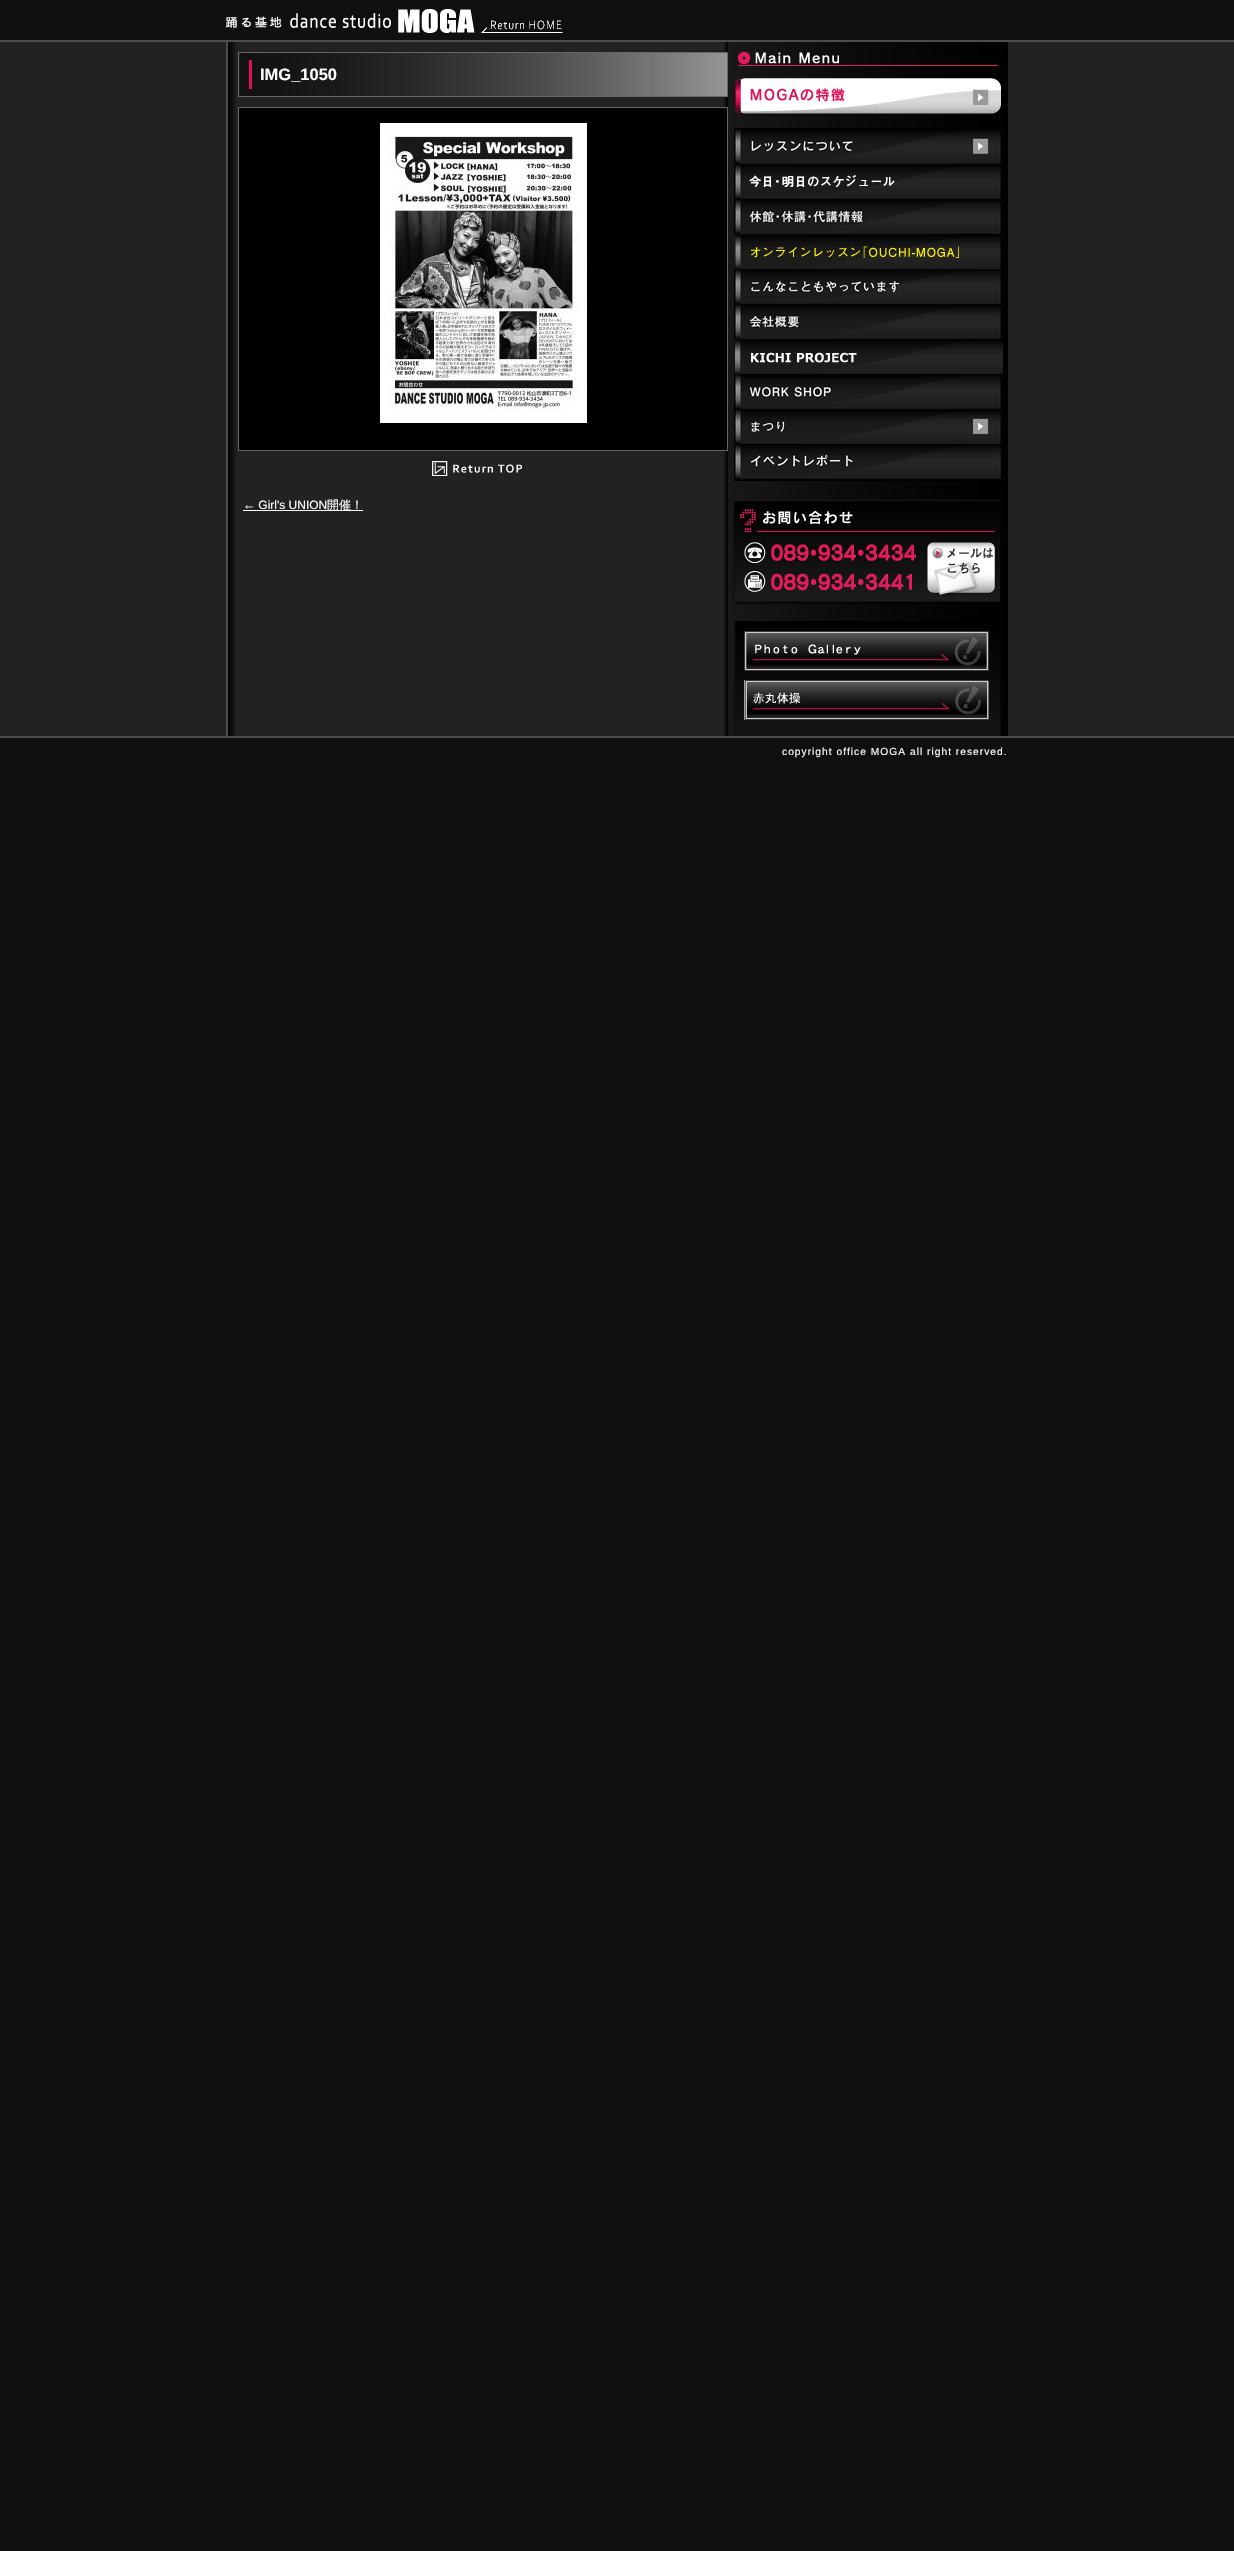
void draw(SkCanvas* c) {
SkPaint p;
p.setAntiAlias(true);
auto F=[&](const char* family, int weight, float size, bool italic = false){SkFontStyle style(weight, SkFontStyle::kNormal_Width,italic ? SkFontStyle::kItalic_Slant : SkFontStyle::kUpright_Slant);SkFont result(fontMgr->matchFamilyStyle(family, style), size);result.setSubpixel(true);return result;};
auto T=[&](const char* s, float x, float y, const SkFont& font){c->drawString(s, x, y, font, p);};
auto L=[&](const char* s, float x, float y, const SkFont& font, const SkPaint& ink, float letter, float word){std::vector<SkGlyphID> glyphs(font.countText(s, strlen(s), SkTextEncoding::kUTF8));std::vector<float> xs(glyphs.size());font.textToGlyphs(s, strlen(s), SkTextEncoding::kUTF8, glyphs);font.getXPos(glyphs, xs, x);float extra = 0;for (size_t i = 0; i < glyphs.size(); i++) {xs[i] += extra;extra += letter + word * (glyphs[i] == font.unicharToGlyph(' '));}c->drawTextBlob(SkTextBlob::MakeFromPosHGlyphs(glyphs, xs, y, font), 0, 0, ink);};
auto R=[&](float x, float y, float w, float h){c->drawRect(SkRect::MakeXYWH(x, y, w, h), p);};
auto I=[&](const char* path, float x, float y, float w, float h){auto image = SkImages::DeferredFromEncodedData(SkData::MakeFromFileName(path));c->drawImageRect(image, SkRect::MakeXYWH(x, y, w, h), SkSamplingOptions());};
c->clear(0xff101010);
p.setColor(0xff4c4c4c);
R(0,40,1234,2);
I("1.png",226,9,337,24);
p.setColor(0xff222222);
R(0,42,1234,694);
I("2.png",226,42,782,694);
I("3.png",240,53,487,43);
p.setStroke(true);
p.setStrokeWidth(1);
p.setColor(0xff666666);
c->drawRect(SkRect::MakeXYWH(238.5,52.5,489,44),p);
auto f1 = F("Liberation Sans",700,16.5);
p.setStroke(false);
p.setColor(0xffffffff);
T("IMG_1050",260,80,f1);
p.setColor(0xffe40d56);
R(249,60,3,29);
p.setColor(0xff000000);
c->drawRect(SkRect::MakeXYWH(238.5,107.5,489,343),p);
p.setStroke(true);
p.setColor(0xff666666);
c->drawRect(SkRect::MakeXYWH(238.5,107.5,489,343),p);
I("4.png",380,123,207,300);
I("5.png",432,461,90,15);
auto f2 = F("Liberation Sans",400,12);
p.setStroke(false);
p.setColor(0xffffffff);
T("← Girl's UNION",243,509,f2);
R(243,510,120,1);
auto f3 = F("WenQuanYi Zen Hei",500,12);
T("開催！",327,509,f3);
p.setColor(0xffe41b5b);
R(738,65,260,1);
I("6.png",738,52,101,12);
I("7.png",734,78,267,38);
I("8.png",734,128,267,36);
I("9.png",734,164,267,35);
I("10.png",734,199,267,35);
I("11.png",735,234,266,35);
I("12.png",734,269,267,35);
I("13.png",734,304,267,35);
I("14.png",734,339,269,35);
I("15.png",734,374,267,35);
I("16.png",734,409,267,35);
I("17.png",734,444,267,37);
I("18.png",733,499,267,39);
I("19.png",733,538,188,67);
I("20.png",921,538,79,64);
I("21.png",734,621,267,115);
I("22.png",744,631,245,40);
I("23.png",744,680,245,40);
p.setColor(0xff4c4c4c);
R(0,736,1234,2);
auto f4 = F("Liberation Sans",400,10.25);
p.setColor(0xffffffff);
L("copyright office MOGA all right reserved.",782,755,f4,p,1,0);
}
